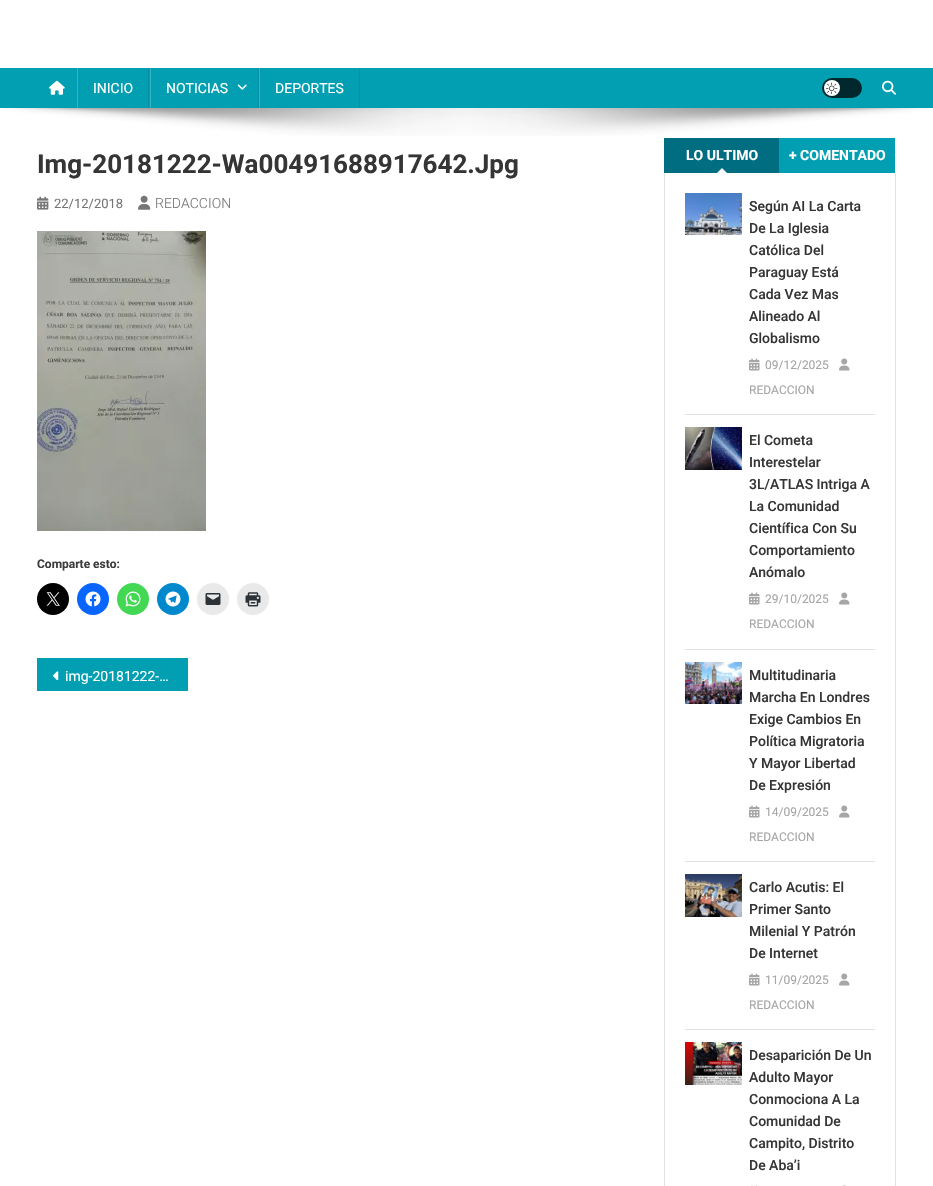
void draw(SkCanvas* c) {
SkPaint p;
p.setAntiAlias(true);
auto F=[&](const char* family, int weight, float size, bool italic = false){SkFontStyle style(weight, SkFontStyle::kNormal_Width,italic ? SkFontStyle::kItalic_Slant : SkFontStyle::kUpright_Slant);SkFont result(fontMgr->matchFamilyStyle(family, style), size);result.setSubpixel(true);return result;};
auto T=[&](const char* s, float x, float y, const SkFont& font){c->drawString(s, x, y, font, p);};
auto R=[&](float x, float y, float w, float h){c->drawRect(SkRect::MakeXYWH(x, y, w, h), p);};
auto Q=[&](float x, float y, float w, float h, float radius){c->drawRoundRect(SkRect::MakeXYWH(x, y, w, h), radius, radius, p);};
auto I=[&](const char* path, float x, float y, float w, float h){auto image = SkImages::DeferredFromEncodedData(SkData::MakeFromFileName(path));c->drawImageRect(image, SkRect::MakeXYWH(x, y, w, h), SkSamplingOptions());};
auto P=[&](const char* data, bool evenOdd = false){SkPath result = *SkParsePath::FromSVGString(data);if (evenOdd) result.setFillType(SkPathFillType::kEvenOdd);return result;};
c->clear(0xffffffff);
p.setColor(0xff029fb2);
R(0,68,933,40);
I("1.png",49,80,16,15);
p.setColor(0xff0292a4);
R(148,68,1,40);
p.setColor(0xff35b2c1);
R(77,68,1,40);
auto f1 = F("Roboto",400,14);
p.setColor(0xffffffff);
T("INICIO",93,93,f1);
p.setColor(0xff0292a4);
R(258,68,1,40);
p.setColor(0xff35b2c1);
R(150,68,1,40);
p.setColor(0xffffffff);
T("NOTICIAS",166,93,f1);
I("2.png",237,84,10,6);
p.setColor(0xff0292a4);
R(359,68,1,40);
p.setColor(0xff35b2c1);
R(259,68,1,40);
p.setColor(0xffffffff);
T("DEPORTES",275,93,f1);
p.setColor(0xff01282d);
Q(822,78,40,20,10);
p.setColor(0xffffffff);
c->drawCircle(832,88,8,p);
I("3.png",826,82,12,12);
I("4.png",882,80,14,15);
I("5.png",4,108,925,28);
auto f2 = F("Roboto",700,26);
p.setColor(0xff353535);
T("Img-20181222-Wa00491688917642.Jpg",37,173,f2);
I("6.png",37,196,12,14);
auto f3 = F("Roboto",400,13);
p.setColor(0xff767676);
T("22/12/2018",54,208,f3);
I("7.png",138,195,13,15);
auto f4 = F("Roboto",300,14);
T("REDACCION",155,208,f4);
I("8.png",37,231,169,300);
auto f5 = F("Roboto",700,12);
p.setColor(0xff3d3d3d);
T("Comparte esto:",37,568,f5);
p.setColor(0xff000000);
c->drawCircle(53,599,16,p);
I("9.png",46,592,14,14);
p.setColor(0xff0866ff);
c->drawCircle(93,599,16,p);
I("10.png",85,591,16,16);
p.setColor(0xff43d854);
c->drawCircle(133,599,16,p);
I("11.png",125,591,16,16);
p.setColor(0xff0088cc);
c->drawCircle(173,599,16,p);
I("12.png",165,591,16,16);
p.setColor(0xffe9e9e9);
c->drawCircle(213,599,16,p);
I("13.png",205,593,16,12);
c->drawCircle(253,599,16,p);
I("14.png",245,592,16,15);
p.setColor(0xff029fb2);
R(37,658,151,33);
I("15.png",53,671,6,10);
p.setColor(0xffffffff);
T("img-20181222-…",65,681,f1);
p.setColor(0xff006d80);
R(664,138,115,35);
auto f6 = F("Roboto",700,14);
p.setColor(0xffffffff);
T("LO ULTIMO",686,160,f6);
c->drawPath(P("M727 173h-10l5-5z"),p);
p.setColor(0xff029fb2);
R(779,138,116,35);
p.setColor(0xffffffff);
T("+ COMENTADO",789,160,f6);
p.setColor(0xffe1e1e1);
R(895,173,1,1013);
R(664,173,1,1013);
R(685,414,190,1);
I("16.png",685,193,57,42);
auto f7 = F("Roboto",500,14);
p.setColor(0xff353535);
T("Según AI La Carta",749,211,f7);
T("De La Iglesia",749,233,f7);
T("Católica Del",749,255,f7);
T("Paraguay Está",749,277,f7);
T("Cada Vez Mas",749,299,f7);
T("Alineado Al",749,321,f7);
T("Globalismo",749,343,f7);
I("17.png",749,358,11,13);
auto f8 = F("Roboto",400,12);
p.setColor(0xffa6a6a6);
T("09/12/2025",765,369,f8);
I("18.png",839,358,11,13);
T("REDACCION",749,394,f8);
p.setColor(0xffe1e1e1);
R(685,649,190,1);
I("19.png",685,427,57,43);
p.setColor(0xff353535);
T("El Cometa",749,445,f7);
T("Interestelar",749,467,f7);
T("3L/ATLAS Intriga A",749,489,f7);
T("La Comunidad",749,511,f7);
T("Científica Con Su",749,533,f7);
T("Comportamiento",749,555,f7);
T("Anómalo",749,577,f7);
I("17.png",749,592,11,13);
p.setColor(0xffa6a6a6);
T("29/10/2025",765,603,f8);
I("18.png",839,592,11,13);
T("REDACCION",749,628,f8);
p.setColor(0xffe1e1e1);
R(685,861,190,1);
I("20.png",685,662,57,42);
p.setColor(0xff353535);
T("Multitudinaria",749,680,f7);
T("Marcha En Londres",749,702,f7);
T("Exige Cambios En",749,724,f7);
T("Política Migratoria",749,746,f7);
T("Y Mayor Libertad",749,768,f7);
T("De Expresión",749,790,f7);
I("17.png",749,805,11,13);
p.setColor(0xffa6a6a6);
T("14/09/2025",765,816,f8);
I("18.png",839,805,11,13);
T("REDACCION",749,841,f8);
p.setColor(0xffe1e1e1);
R(685,1029,190,1);
I("21.png",685,874,57,43);
p.setColor(0xff353535);
T("Carlo Acutis: El",749,892,f7);
T("Primer Santo",749,914,f7);
T("Milenial Y Patrón",749,936,f7);
T("De Internet",749,958,f7);
I("17.png",749,973,11,13);
p.setColor(0xffa6a6a6);
T("11/09/2025",765,984,f8);
I("18.png",839,973,11,13);
T("REDACCION",749,1009,f8);
I("22.png",685,1042,57,43);
p.setColor(0xff353535);
T("Desaparición De Un",749,1060,f7);
T("Adulto Mayor",749,1082,f7);
T("Conmociona A La",749,1104,f7);
T("Comunidad De",749,1126,f7);
T("Campito, Distrito",749,1148,f7);
T("De Aba’i",749,1170,f7);
I("23.png",751,1185,6,1);
I("24.png",842,1185,4,1);
}
